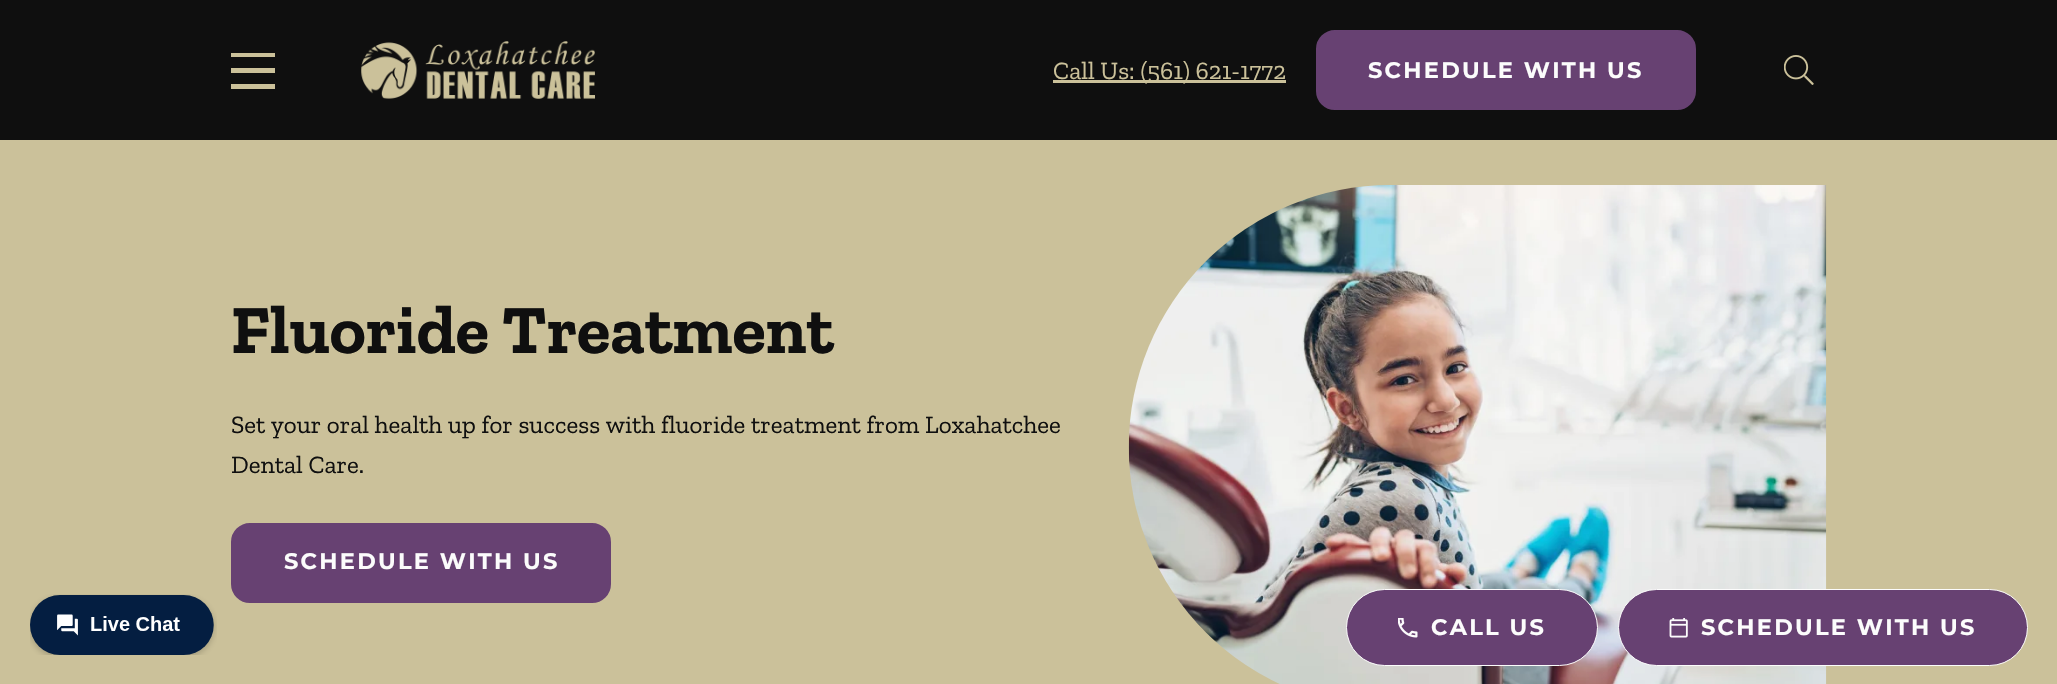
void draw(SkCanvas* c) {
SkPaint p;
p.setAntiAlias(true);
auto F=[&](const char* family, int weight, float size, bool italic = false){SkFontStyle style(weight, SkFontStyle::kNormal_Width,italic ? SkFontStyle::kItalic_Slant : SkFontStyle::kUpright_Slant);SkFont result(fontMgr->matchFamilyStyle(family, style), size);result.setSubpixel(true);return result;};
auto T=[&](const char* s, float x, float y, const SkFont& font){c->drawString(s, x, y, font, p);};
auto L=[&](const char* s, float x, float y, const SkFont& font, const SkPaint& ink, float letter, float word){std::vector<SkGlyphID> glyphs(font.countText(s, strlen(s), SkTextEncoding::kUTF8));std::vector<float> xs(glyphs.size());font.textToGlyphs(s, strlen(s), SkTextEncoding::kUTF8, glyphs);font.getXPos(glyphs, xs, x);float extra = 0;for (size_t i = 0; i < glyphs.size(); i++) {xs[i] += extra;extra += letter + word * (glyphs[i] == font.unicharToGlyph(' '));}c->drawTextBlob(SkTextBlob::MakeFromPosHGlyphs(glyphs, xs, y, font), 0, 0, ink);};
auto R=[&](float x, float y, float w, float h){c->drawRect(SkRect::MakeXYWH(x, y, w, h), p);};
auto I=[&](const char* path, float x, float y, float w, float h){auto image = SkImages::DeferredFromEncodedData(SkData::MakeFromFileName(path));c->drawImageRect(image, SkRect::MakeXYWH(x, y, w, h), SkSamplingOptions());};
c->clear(0xff0f0f0f);
p.setColor(0xffcbc19a);
R(0,140,2057,544);
I("1.png",30,594,187,61);
R(231,53,44,4);
R(231,68,44,5);
R(231,84,44,5);
I("2.png",361,41,234,58);
R(1053,80,233,3);
auto f1 = F("Zilla Slab",400,25);
T("Call Us: (561) 621-1772",1053,79,f1);
p.setColor(0xff674172);
c->drawRoundRect(SkRect::MakeXYWH(1317.5,31.5,377,77),17.5,17.5,p);
p.setStroke(true);
p.setStrokeWidth(3);
c->drawRoundRect(SkRect::MakeXYWH(1317.5,31.5,377,77),17.5,17.5,p);
auto f2 = F("Montserrat",700,22.5);
p.setStroke(false);
p.setColor(0xfffcfcfc);
L("SCHEDULE WITH US",1368,78,f2,p,2.25,0);
I("3.png",1784,55,30,30);
auto f3 = F("Zilla Slab",700,68.75);
p.setColor(0xff0f0f0f);
T("Fluoride Treatment",231,353,f3);
T("Set your oral health up for success with fluoride treatment from Loxahatchee",231,433,f1);
T("Dental Care.",231,473,f1);
p.setColor(0xff674172);
c->drawRoundRect(SkRect::MakeXYWH(232.5,524.5,377,77),17.5,17.5,p);
p.setStroke(true);
c->drawRoundRect(SkRect::MakeXYWH(232.5,524.5,377,77),17.5,17.5,p);
p.setStroke(false);
p.setColor(0xfffcfcfc);
L("SCHEDULE WITH US",284,569,f2,p,2.25,0);
I("4.png",1128,185,699,499);
p.setColor(0xff674172);
c->drawRoundRect(SkRect::MakeXYWH(1346.5,589.5,251,76),38,38,p);
p.setStroke(true);
p.setStrokeWidth(1);
p.setColor(0xfffcfcfc);
c->drawRoundRect(SkRect::MakeXYWH(1346.5,589.5,251,76),38,38,p);
I("5.png",1398,618,20,20);
p.setStroke(false);
L("CALL US",1431,635,f2,p,2.25,0);
p.setColor(0xff674172);
c->drawRoundRect(SkRect::MakeXYWH(1618.5,589.5,409,76),38,38,p);
p.setStroke(true);
p.setColor(0xfffcfcfc);
c->drawRoundRect(SkRect::MakeXYWH(1618.5,589.5,409,76),38,38,p);
I("6.png",1669,618,19,20);
p.setStroke(false);
L("SCHEDULE WITH US",1701,635,f2,p,2.25,0);
}
